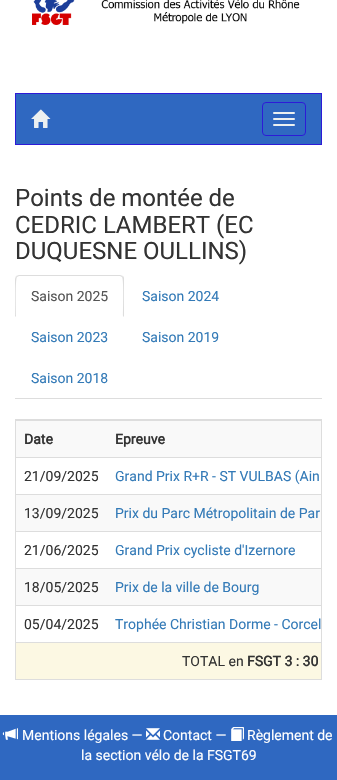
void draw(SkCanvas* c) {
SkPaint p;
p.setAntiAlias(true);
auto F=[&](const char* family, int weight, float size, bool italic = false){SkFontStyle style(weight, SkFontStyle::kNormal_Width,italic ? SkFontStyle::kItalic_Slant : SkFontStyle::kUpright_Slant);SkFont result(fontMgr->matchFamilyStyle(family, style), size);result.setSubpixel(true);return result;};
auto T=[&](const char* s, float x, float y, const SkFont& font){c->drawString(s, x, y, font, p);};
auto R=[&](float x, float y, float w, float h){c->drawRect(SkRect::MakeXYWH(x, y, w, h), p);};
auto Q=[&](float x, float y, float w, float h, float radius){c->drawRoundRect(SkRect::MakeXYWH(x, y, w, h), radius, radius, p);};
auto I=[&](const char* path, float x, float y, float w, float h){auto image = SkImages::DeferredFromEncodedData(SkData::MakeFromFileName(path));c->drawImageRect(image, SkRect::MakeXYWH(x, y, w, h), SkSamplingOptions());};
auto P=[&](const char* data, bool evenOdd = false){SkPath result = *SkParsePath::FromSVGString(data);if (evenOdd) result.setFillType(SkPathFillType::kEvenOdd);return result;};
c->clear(0xff2f68c1);
p.setColor(0xffffffff);
R(0,0,337,715);
I("1.png",32,0,268,25);
p.setColor(0xff2f68c1);
c->drawRect(SkRect::MakeXYWH(15.5,93.5,306,51),p);
p.setStroke(true);
p.setStrokeWidth(1);
p.setColor(0xff2d1ad7);
c->drawRect(SkRect::MakeXYWH(15.5,93.5,306,51),p);
I("2.png",31,109,20,19);
c->drawRoundRect(SkRect::MakeXYWH(262.5,102.5,43,33),3.5,3.5,p);
p.setStroke(false);
p.setColor(0xffecf0f1);
Q(273,112,22,2,1);
Q(273,118,22,2,1);
Q(273,124,22,2,1);
auto f1 = F("Roboto",400,24);
p.setColor(0xff333333);
T("Points de montée de",15,206,f1);
T("CEDRIC LAMBERT (EC",15,233,f1);
T("DUQUESNE OULLINS)",15,259,f1);
p.setColor(0xffdddddd);
R(15,398,307,1);
c->drawPath(P("M19 275l-3 1l1 1l2-1h101l2 1l1-1l-3-1z"),p);
c->drawPath(P("M124 317v-38c0-1 0-2-1-3l-1 1c2 2 1 34 1 39z"),p);
c->drawPath(P("M15 317l1-1c0-5-1-37 1-39l-1-1l-1 3z"),p);
auto f2 = F("Roboto",400,14);
p.setColor(0xff555555);
T("Saison 2025",31,301,f2);
p.setColor(0xff337ab7);
T("Saison 2024",142,301,f2);
T("Saison 2023",31,342,f2);
T("Saison 2019",142,342,f2);
T("Saison 2018",31,383,f2);
p.setStroke(true);
p.setColor(0xffdddddd);
c->drawRect(SkRect::MakeXYWH(15.5,419.5,306,260),p);
p.setStroke(false);
p.setColor(0xfff9f9f9);
R(16,421,305,36);
auto f3 = F("Roboto",700,14);
p.setColor(0xff333333);
T("Date",24,444,f3);
p.setColor(0xffdddddd);
R(16,420,305,1);
p.setColor(0xff333333);
T("Epreuve",115,444,f3);
T("21/09/2025",24,481,f2);
p.setColor(0xffdddddd);
R(16,457,305,1);
p.setColor(0xff337ab7);
T("Grand Prix R+R - ST VULBAS (Ain",115,481,f2);
p.setColor(0xfff9f9f9);
R(16,495,305,36);
p.setColor(0xff333333);
T("13/09/2025",24,518,f2);
p.setColor(0xffdddddd);
R(16,494,305,1);
p.setColor(0xff337ab7);
T("Prix du Parc Métropolitain de Par",115,518,f2);
p.setColor(0xff333333);
T("21/06/2025",24,555,f2);
p.setColor(0xffdddddd);
R(16,531,305,1);
p.setColor(0xff337ab7);
T("Grand Prix cycliste d'Izernore",115,555,f2);
p.setColor(0xfff9f9f9);
R(16,569,305,36);
p.setColor(0xff333333);
T("18/05/2025",24,592,f2);
p.setColor(0xffdddddd);
R(16,568,305,1);
p.setColor(0xff337ab7);
T("Prix de la ville de Bourg",115,592,f2);
p.setColor(0xff333333);
T("05/04/2025",24,629,f2);
p.setColor(0xffdddddd);
R(16,605,305,1);
p.setColor(0xff337ab7);
T("Trophée Christian Dorme - Corcel",115,629,f2);
p.setColor(0xfffcf8e3);
R(16,643,305,36);
p.setColor(0xffdddddd);
R(16,642,305,1);
p.setColor(0xff333333);
T("TOTAL en",182,666,f2);
T("FSGT 3 : 30",247,666,f3);
I("3.png",2,728,16,12);
p.setColor(0xffffffff);
T("Mentions légales —",22,740,f2);
I("4.png",231,727,13,14);
T("Règlement de",247,740,f2);
T("la section vélo de la FSGT69",81,760,f2);
I("5.png",146,728,14,12);
T("Contact —",163,740,f2);
}
